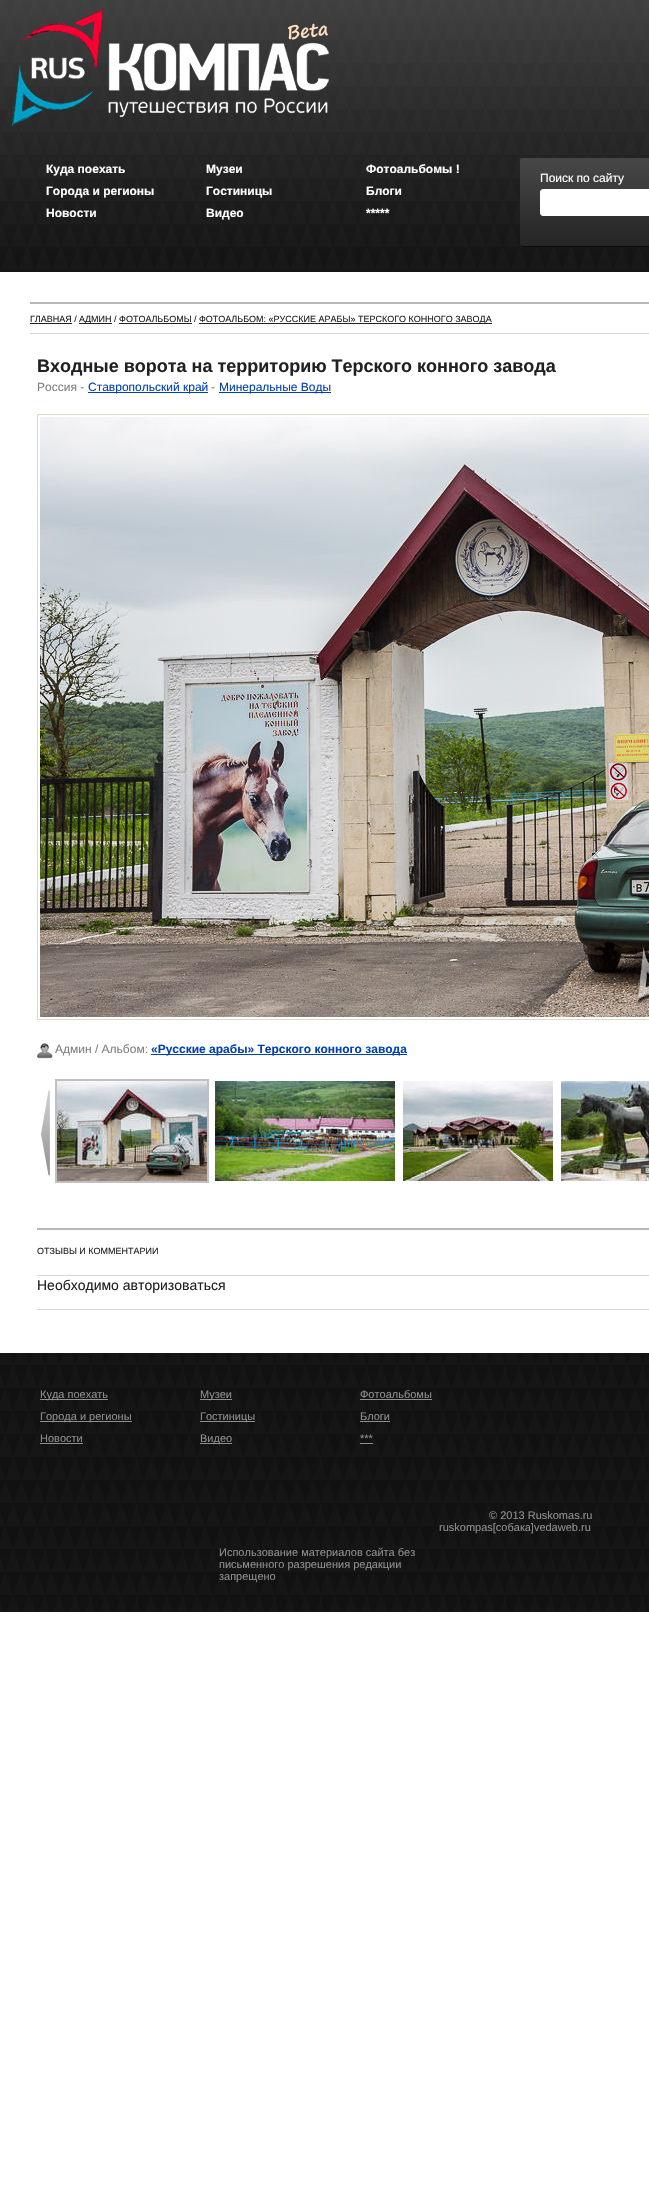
void draw(SkCanvas* c) {
SkPaint p;
p.setAntiAlias(true);
auto F=[&](const char* family, int weight, float size, bool italic = false){SkFontStyle style(weight, SkFontStyle::kNormal_Width,italic ? SkFontStyle::kItalic_Slant : SkFontStyle::kUpright_Slant);SkFont result(fontMgr->matchFamilyStyle(family, style), size);result.setSubpixel(true);return result;};
auto T=[&](const char* s, float x, float y, const SkFont& font){c->drawString(s, x, y, font, p);};
auto R=[&](float x, float y, float w, float h){c->drawRect(SkRect::MakeXYWH(x, y, w, h), p);};
auto I=[&](const char* path, float x, float y, float w, float h){auto image = SkImages::DeferredFromEncodedData(SkData::MakeFromFileName(path));c->drawImageRect(image, SkRect::MakeXYWH(x, y, w, h), SkSamplingOptions());};
c->clear(0xffffffff);
I("1.png",0,0,649,272);
I("2.png",12,8,317,118);
auto f1 = F("Liberation Sans",700,12);
p.setColor(0xffffffff);
T("Куда поехать",46,173,f1);
T("Города и регионы",46,195,f1);
T("Новости",46,217,f1);
T("Музеи",206,173,f1);
T("Гостиницы",206,195,f1);
T("Видео",206,217,f1);
T("Фотоальбомы !",366,173,f1);
T("Блоги",366,195,f1);
T("*****",366,217,f1);
I("3.png",520,158,2,89);
I("4.png",522,158,127,89);
auto f2 = F("Liberation Sans",400,12);
T("Поиск по сайту",540,182,f2);
c->drawRoundRect(SkRect::MakeXYWH(540.5,189.5,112,26),2.5,2.5,p);
p.setStroke(true);
p.setStrokeWidth(1);
c->drawRoundRect(SkRect::MakeXYWH(540.5,189.5,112,26),2.5,2.5,p);
p.setStroke(false);
p.setColor(0xffb8b8b8);
R(30,302,619,2);
p.setColor(0xffd6d6d6);
R(30,333,619,1);
auto f3 = F("Liberation Sans",400,9);
p.setColor(0xff212121);
T("ГЛАВНАЯ /",30,322,f3);
R(30,323,42,1);
R(79,323,33,1);
T("АДМИН / ФОТОАЛЬБОМЫ /",79,322,f3);
R(199,323,293,1);
T("ФОТОАЛЬБОМ: «РУССКИЕ АРАБЫ» ТЕРСКОГО КОННОГО ЗАВОДА",199,322,f3);
R(119,323,73,1);
auto f4 = F("Liberation Sans",700,18);
T("Входные ворота на территорию Терского конного завода",37,372,f4);
p.setColor(0xff808080);
T("Россия -",37,391,f2);
p.setColor(0xff0040b5);
R(88,392,120,1);
T("Ставропольский край",88,391,f2);
p.setColor(0xff808080);
T("-",211,391,f2);
p.setColor(0xff0040b5);
R(219,392,112,1);
T("Минеральные Воды",219,391,f2);
p.setStroke(true);
p.setColor(0xffdedbc8);
c->drawRect(SkRect::MakeXYWH(37.5,414.5,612,605),p);
I("5.png",40,417,609,600);
I("6.png",37,1043,16,16);
p.setStroke(false);
p.setColor(0xff808080);
T("Админ / Альбом:",55,1053,f2);
p.setColor(0xff0040b5);
R(151,1054,256,1);
T("«Русские арабы» Терского конного завода",151,1053,f1);
I("7.png",41,1090,10,86);
p.setStroke(true);
p.setStrokeWidth(2);
p.setColor(0xffc0c0c0);
c->drawRect(SkRect::MakeXYWH(56,1080,152,102),p);
I("8.png",57,1081,150,100);
I("9.png",215,1081,180,100);
I("10.png",403,1081,150,100);
I("11.png",561,1081,88,100);
p.setStroke(false);
p.setColor(0xffb8b8b8);
R(37,1228,612,2);
p.setColor(0xffd6d6d6);
R(37,1275,612,1);
p.setColor(0xff212121);
T("ОТЗЫВЫ И КОММЕНТАРИИ",37,1254,f3);
auto f5 = F("Liberation Sans",400,14);
T("Необходимо авторизоваться",37,1290,f5);
p.setColor(0xffd6d6d6);
R(37,1309,612,1);
I("12.png",0,1353,649,259);
p.setColor(0xff8f8f8f);
R(40,1399,68,1);
auto f6 = F("Liberation Sans",400,11);
T("Куда поехать",40,1398,f6);
R(40,1421,92,1);
T("Города и регионы",40,1420,f6);
T("Новости",40,1442,f6);
R(40,1443,43,1);
R(200,1399,32,1);
T("Музеи",200,1398,f6);
R(200,1421,55,1);
T("Гостиницы",200,1420,f6);
R(200,1443,32,1);
T("Видео",200,1442,f6);
T("Фотоальбомы",360,1398,f6);
R(360,1399,72,1);
T("Блоги",360,1420,f6);
R(360,1421,30,1);
T("***",360,1442,f6);
R(360,1443,13,1);
T("© 2013 Ruskomas.ru",489,1519,f6);
T("ruskompas[собака]vedaweb.ru",439,1531,f6);
T("Использование материалов сайта без",219,1556,f6);
T("письменного разрешения редакции",219,1568,f6);
T("запрещено",219,1580,f6);
}
